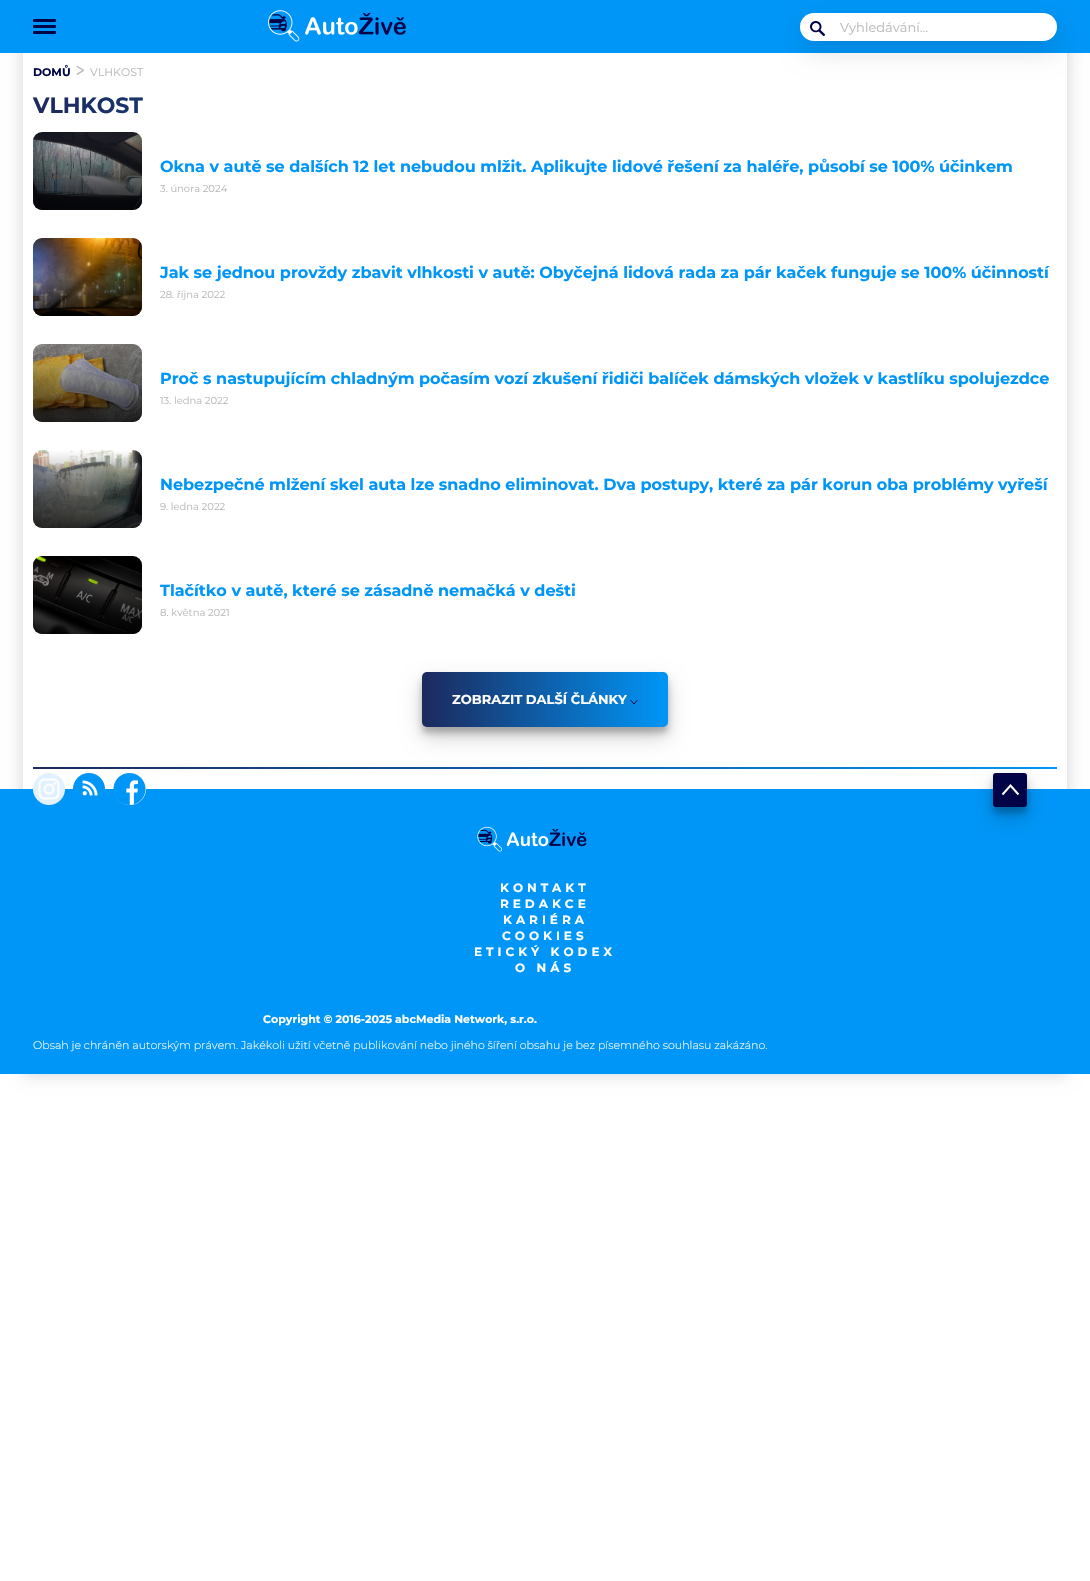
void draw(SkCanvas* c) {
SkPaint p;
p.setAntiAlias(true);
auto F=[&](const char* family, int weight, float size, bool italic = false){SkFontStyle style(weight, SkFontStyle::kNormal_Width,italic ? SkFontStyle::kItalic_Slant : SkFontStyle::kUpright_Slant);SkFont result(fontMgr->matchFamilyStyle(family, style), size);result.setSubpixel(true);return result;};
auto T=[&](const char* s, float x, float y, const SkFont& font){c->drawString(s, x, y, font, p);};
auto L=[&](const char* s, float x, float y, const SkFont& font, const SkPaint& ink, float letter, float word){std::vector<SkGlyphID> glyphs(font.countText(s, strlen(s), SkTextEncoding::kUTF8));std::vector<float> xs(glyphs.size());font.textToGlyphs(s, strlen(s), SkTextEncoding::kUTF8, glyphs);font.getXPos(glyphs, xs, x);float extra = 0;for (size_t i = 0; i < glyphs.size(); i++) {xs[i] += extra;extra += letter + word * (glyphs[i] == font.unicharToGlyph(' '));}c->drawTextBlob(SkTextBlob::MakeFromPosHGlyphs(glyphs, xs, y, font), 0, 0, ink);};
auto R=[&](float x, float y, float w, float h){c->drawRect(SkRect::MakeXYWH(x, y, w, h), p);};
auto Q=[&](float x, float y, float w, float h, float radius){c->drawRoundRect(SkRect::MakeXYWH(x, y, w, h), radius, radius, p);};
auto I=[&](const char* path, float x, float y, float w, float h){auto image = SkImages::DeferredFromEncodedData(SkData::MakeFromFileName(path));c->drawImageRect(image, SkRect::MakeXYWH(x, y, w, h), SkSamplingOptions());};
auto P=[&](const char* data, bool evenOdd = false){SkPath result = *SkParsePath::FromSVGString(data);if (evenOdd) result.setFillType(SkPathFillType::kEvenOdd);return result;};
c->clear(0xffffffff);
c->save();
c->clipPath(P("M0 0h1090v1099h-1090zm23 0h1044v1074h-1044z",true),true);
p.setColor(0xffd4d4d4);
p.setMaskFilter(SkMaskFilter::MakeBlur(kNormal_SkBlurStyle, 8));
c->drawRect(SkRect::MakeXYWH(23,0,1044,1074),p);
p.setMaskFilter(nullptr);
c->restore();
p.setColor(0xff0096f7);
R(0,0,1090,53);
p.setColor(0xff000447);
Q(33,19,23,3,1);
Q(33,25,23,3,1);
Q(33,31,23,3,1);
I("1.png",268,10,138,32);
p.setColor(0x1f000000);
p.setMaskFilter(SkMaskFilter::MakeBlur(kNormal_SkBlurStyle, 12.5));
c->drawRoundRect(SkRect::MakeXYWH(803,23,257,28),14,14,p);
p.setMaskFilter(nullptr);
p.setColor(0xffffffff);
Q(800,13,257,28,14);
I("2.png",810,21,15,15);
auto f1 = F("Montserrat",400,13);
p.setColor(0xffb9b9b9);
T("Vyhledávání...",840,32,f1);
auto f2 = F("Montserrat",700,11);
p.setColor(0xff000447);
T("DOMŮ",33,76,f2);
auto f3 = F("Comfortaa",400,16);
p.setColor(0xffb9b9b9);
T(">",76,76,f3);
auto f4 = F("Montserrat",400,11);
T("VLHKOST",90,76,f4);
auto f5 = F("Montserrat",700,22);
{
const SkColor colors[] = {0xff1c295d,0xff0096f7};
const float stops[] = {0,1};
const SkPoint ends[] = {{33,106}, {1057,105}};
p.setShader(SkGradientShader::MakeLinear(ends, colors, stops, 2, SkTileMode::kClamp));
p.setAlpha(255);
}
T("VLHKOST",33,113,f5);
I("3.png",33,132,109,78);
{
const SkColor colors[] = {0x00000000,0xc2000000};
const float stops[] = {0,1};
const SkPoint ends[] = {{88,132}, {88,210}};
p.setShader(SkGradientShader::MakeLinear(ends, colors, stops, 2, SkTileMode::kClamp));
p.setAlpha(255);
}
Q(33,132,109,78,9);
auto f6 = F("Montserrat",700,16);
p.setShader(nullptr);
p.setColor(0xff0096f7);
T("Okna v autě se dalších 12 let nebudou mlžit. Aplikujte lidové řešení za haléře, působí se 100% účinkem",160,172,f6);
auto f7 = F("Montserrat",400,10);
p.setColor(0xffb9b9b9);
T("3. února 2024",160,192,f7);
I("4.png",33,238,109,78);
{
const SkColor colors[] = {0x00000000,0xc2000000};
const float stops[] = {0,1};
const SkPoint ends[] = {{88,238}, {88,316}};
p.setShader(SkGradientShader::MakeLinear(ends, colors, stops, 2, SkTileMode::kClamp));
p.setAlpha(255);
}
Q(33,238,109,78,9);
p.setShader(nullptr);
p.setColor(0xff0096f7);
T("Jak se jednou provždy zbavit vlhkosti v autě: Obyčejná lidová rada za pár kaček funguje se 100% účinností",160,278,f6);
p.setColor(0xffb9b9b9);
T("28. října 2022",160,298,f7);
I("5.png",33,344,109,78);
{
const SkColor colors[] = {0x00000000,0xc2000000};
const float stops[] = {0,1};
const SkPoint ends[] = {{88,344}, {88,422}};
p.setShader(SkGradientShader::MakeLinear(ends, colors, stops, 2, SkTileMode::kClamp));
p.setAlpha(255);
}
Q(33,344,109,78,9);
p.setShader(nullptr);
p.setColor(0xff0096f7);
T("Proč s nastupujícím chladným počasím vozí zkušení řidiči balíček dámských vložek v kastlíku spolujezdce",160,384,f6);
p.setColor(0xffb9b9b9);
T("13. ledna 2022",160,404,f7);
I("6.png",33,450,109,78);
{
const SkColor colors[] = {0x00000000,0xc2000000};
const float stops[] = {0,1};
const SkPoint ends[] = {{88,450}, {88,528}};
p.setShader(SkGradientShader::MakeLinear(ends, colors, stops, 2, SkTileMode::kClamp));
p.setAlpha(255);
}
Q(33,450,109,78,9);
p.setShader(nullptr);
p.setColor(0xff0096f7);
T("Nebezpečné mlžení skel auta lze snadno eliminovat. Dva postupy, které za pár korun oba problémy vyřeší",160,490,f6);
p.setColor(0xffb9b9b9);
T("9. ledna 2022",160,510,f7);
I("7.png",33,556,109,78);
{
const SkColor colors[] = {0x00000000,0xc2000000};
const float stops[] = {0,1};
const SkPoint ends[] = {{88,556}, {88,634}};
p.setShader(SkGradientShader::MakeLinear(ends, colors, stops, 2, SkTileMode::kClamp));
p.setAlpha(255);
}
Q(33,556,109,78,9);
p.setShader(nullptr);
p.setColor(0xff0096f7);
T("Tlačítko v autě, které se zásadně nemačká v dešti",160,596,f6);
p.setColor(0xffb9b9b9);
T("8. května 2021",160,616,f7);
p.setColor(0x3b000000);
p.setMaskFilter(SkMaskFilter::MakeBlur(kNormal_SkBlurStyle, 3));
c->drawRoundRect(SkRect::MakeXYWH(422,678,246,55),5,5,p);
p.setMaskFilter(nullptr);
p.setColor(0x30000000);
p.setMaskFilter(SkMaskFilter::MakeBlur(kNormal_SkBlurStyle, 10));
c->drawRoundRect(SkRect::MakeXYWH(422,682,246,55),5,5,p);
p.setMaskFilter(nullptr);
{
const SkColor colors[] = {0xff1c295d,0xff0096f7};
const float stops[] = {0,1};
const SkPoint ends[] = {{422,700}, {668,700}};
p.setShader(SkGradientShader::MakeLinear(ends, colors, stops, 2, SkTileMode::kClamp));
p.setAlpha(255);
}
Q(422,672,246,55,5);
auto f8 = F("Montserrat",700,13);
p.setShader(nullptr);
p.setColor(0xffffffff);
T("ZOBRAZIT DALŠÍ ČLÁNKY",452,704,f8);
c->save();
c->clipRect(SkRect::MakeXYWH(630,700,8,4));
p.setStroke(true);
p.setStrokeWidth(1);
p.setColor(0xff000447);
c->drawPath(P("M637.5 700l-3.5 4l-3.5-4"),p);
c->restore();
p.setStroke(false);
{
const SkColor colors[] = {0xff1c295d,0xff0096f7};
const float stops[] = {0,1};
const SkPoint ends[] = {{33,768}, {1057,768}};
p.setShader(SkGradientShader::MakeLinear(ends, colors, stops, 2, SkTileMode::kClamp));
p.setAlpha(255);
}
R(33,767,1024,2);
p.setShader(nullptr);
p.setColor(0xff0096f7);
R(0,789,1090,285);
I("8.png",477,826,110,26);
p.setColor(0x3b000000);
p.setMaskFilter(SkMaskFilter::MakeBlur(kNormal_SkBlurStyle, 3));
c->drawRoundRect(SkRect::MakeXYWH(993,779,34,34),3,3,p);
p.setMaskFilter(nullptr);
p.setColor(0x30000000);
p.setMaskFilter(SkMaskFilter::MakeBlur(kNormal_SkBlurStyle, 10));
c->drawRoundRect(SkRect::MakeXYWH(993,783,34,34),3,3,p);
p.setMaskFilter(nullptr);
p.setColor(0xff000447);
Q(993,773,34,34,3);
p.setStroke(true);
p.setStrokeWidth(2);
p.setColor(0xffffffff);
c->drawPath(P("M1002.5 794.5l8-9l8 9"),p);
auto f9 = F("Montserrat",700,12);
p.setStroke(false);
L("KONTAKT",500,892,f9,p,4,0);
L("REDAKCE",500,908,f9,p,4,0);
L("KARIÉRA",503,924,f9,p,4,0);
L("COOKIES",502,940,f9,p,4,0);
L("ETICKÝ KODEX",474,956,f9,p,4,0);
L("O NÁS",515,972,f9,p,4,0);
I("9.png",33,773,32,32);
I("10.png",73,773,32,23);
I("11.png",113,773,33,32);
T("Copyright © 2016-2025 abcMedia Network, s.r.o.",263,1023,f2);
auto f10 = F("Montserrat",300,11);
T("Obsah je chráněn autorským právem. Jakékoli užití včetně publikování nebo jiného šíření obsahu je bez písemného souhlasu zakázáno.",33,1049,f10);
}
